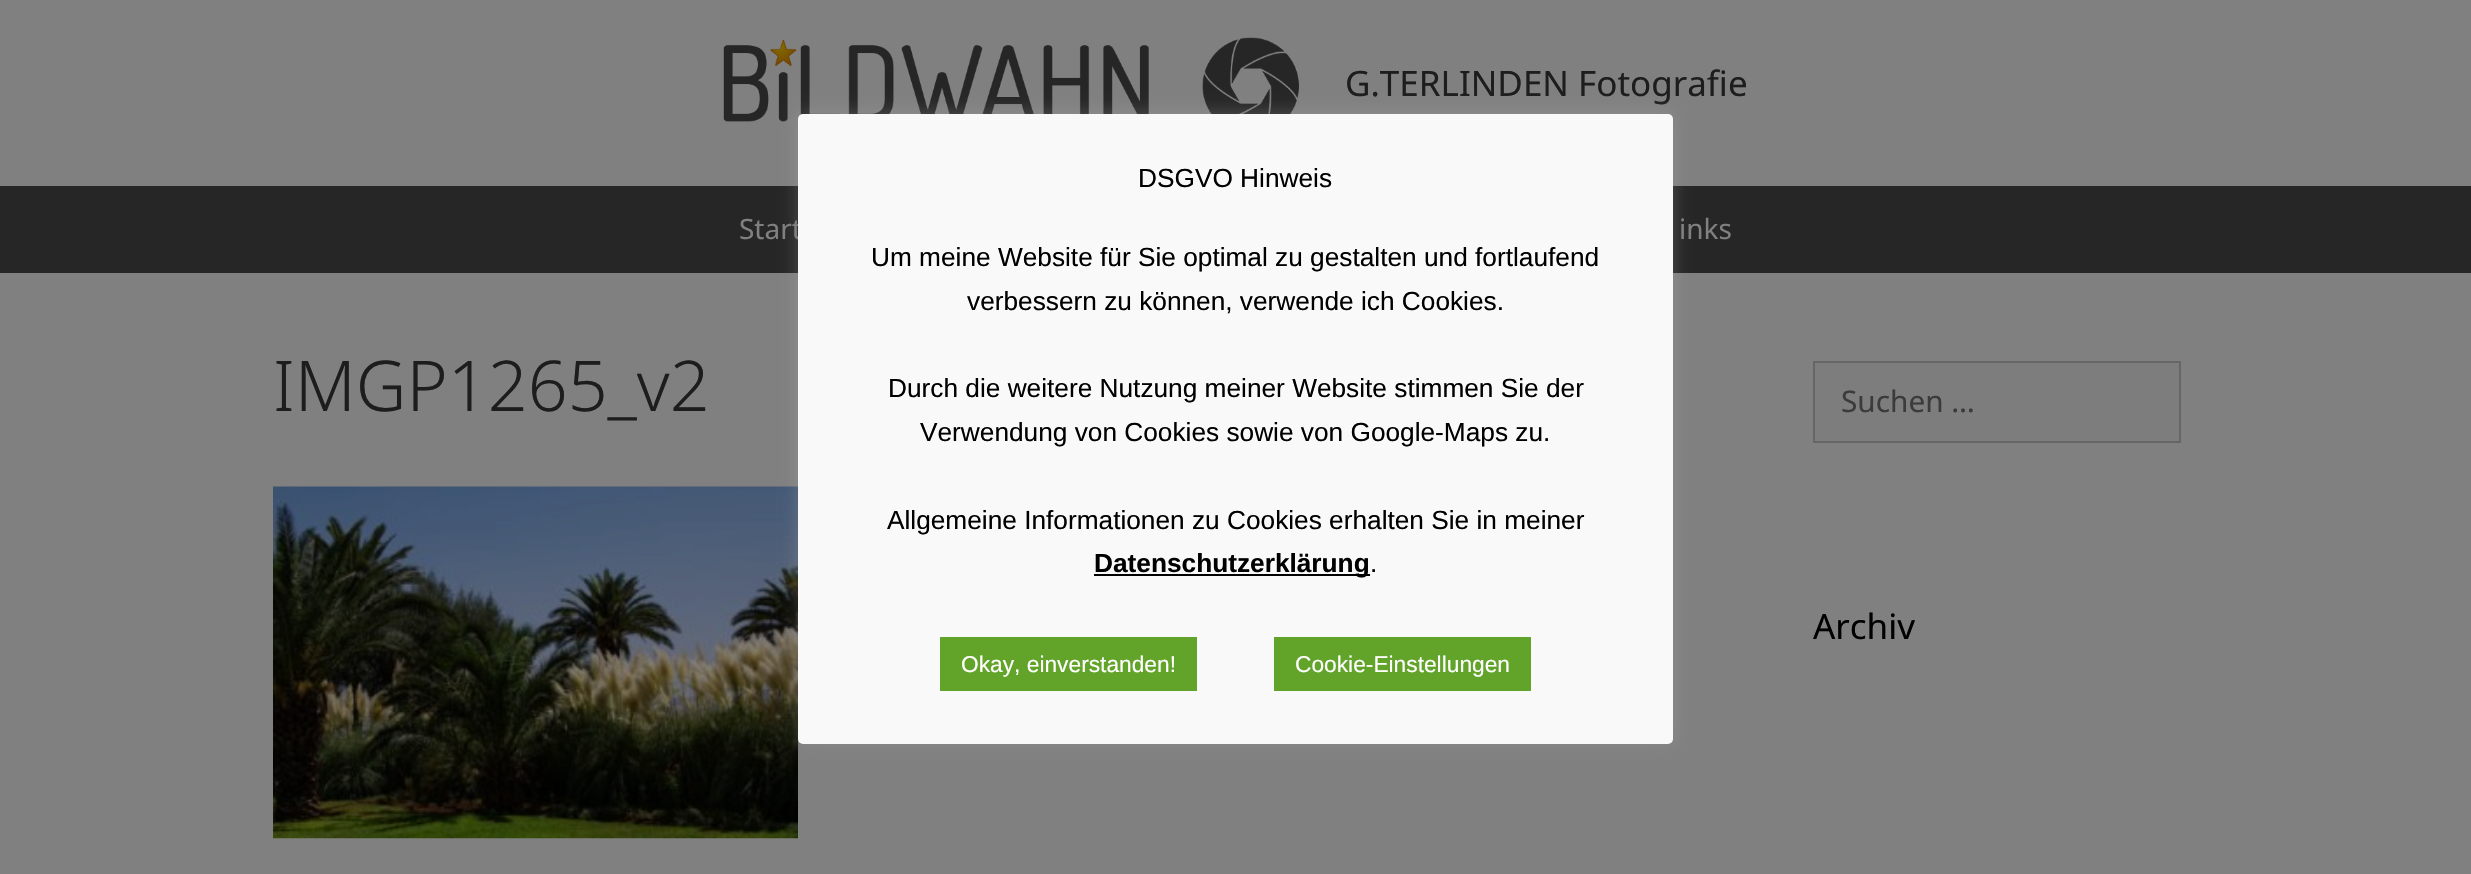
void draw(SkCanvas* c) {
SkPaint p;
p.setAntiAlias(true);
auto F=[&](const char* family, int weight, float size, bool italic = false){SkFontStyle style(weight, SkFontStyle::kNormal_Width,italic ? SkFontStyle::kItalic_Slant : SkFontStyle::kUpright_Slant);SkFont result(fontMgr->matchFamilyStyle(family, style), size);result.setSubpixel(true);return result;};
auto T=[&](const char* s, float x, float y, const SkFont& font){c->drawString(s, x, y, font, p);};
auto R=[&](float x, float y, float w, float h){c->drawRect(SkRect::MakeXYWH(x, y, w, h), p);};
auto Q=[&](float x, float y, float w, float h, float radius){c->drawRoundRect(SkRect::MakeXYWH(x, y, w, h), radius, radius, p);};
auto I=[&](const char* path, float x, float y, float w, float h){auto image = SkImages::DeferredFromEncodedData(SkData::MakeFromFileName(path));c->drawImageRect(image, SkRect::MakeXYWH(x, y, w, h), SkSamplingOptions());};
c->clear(0xff808080);
I("1.png",723,37,576,85);
auto f1 = F("Noto Sans",400,35);
p.setColor(0xff1d1d1d);
T("G.TERLINDEN Fotografie",1345,96,f1);
p.setColor(0xff262626);
R(0,186,2471,87);
I("2.png",273,486,525,353);
p.setColor(0x4dacabab);
p.setMaskFilter(SkMaskFilter::MakeBlur(kNormal_SkBlurStyle, 9));
c->drawRoundRect(SkRect::MakeXYWH(798,112,875,630),5,5,p);
p.setMaskFilter(nullptr);
auto f2 = F("Noto Sans",400,28);
p.setColor(0xff808080);
T("Start",739,239,f2);
p.setColor(0xfff9f9f9);
Q(798,114,875,630,5);
auto f3 = F("Liberation Sans",400,26.25);
p.setColor(0xff000000);
T("DSGVO Hinweis",1138,187,f3);
T("Um meine Website für Sie optimal zu gestalten und fortlaufend",871,266,f3);
T("verbessern zu können, verwende ich Cookies.",967,310,f3);
T("Durch die weitere Nutzung meiner Website stimmen Sie der",888,397,f3);
T("Verwendung von Cookies sowie von Google-Maps zu.",920,441,f3);
T("Allgemeine Informationen zu Cookies erhalten Sie in meiner",887,529,f3);
R(1094,574,276,2);
auto f4 = F("Liberation Sans",700,26.25);
T("Datenschutzerklärung",1094,572,f4);
T(".",1370,572,f3);
p.setColor(0xff62a329);
R(940,637,257,54);
auto f5 = F("Liberation Sans",400,22.75);
p.setColor(0xffffffff);
T("Okay, einverstanden!",961,672,f5);
p.setColor(0xff62a329);
R(1274,637,257,54);
p.setColor(0xffffffff);
T("Cookie-Einstellungen",1295,672,f5);
p.setColor(0xff808080);
T("inks",1679,239,f2);
auto f6 = F("Noto Sans",300,70);
p.setColor(0xff1d1d1d);
T("IMGP1265_v2",273,411,f6);
p.setColor(0xff7d7d7d);
c->drawRect(SkRect::MakeXYWH(1814,362,366,80),p);
p.setStroke(true);
p.setStrokeWidth(2);
p.setColor(0xff666666);
c->drawRect(SkRect::MakeXYWH(1814,362,366,80),p);
auto f7 = F("Noto Sans",400,29.75);
p.setStroke(false);
p.setColor(0xff3b3b3b);
T("Suchen …",1841,412,f7);
p.setColor(0xff000000);
T("Archiv",1813,639,f1);
}
